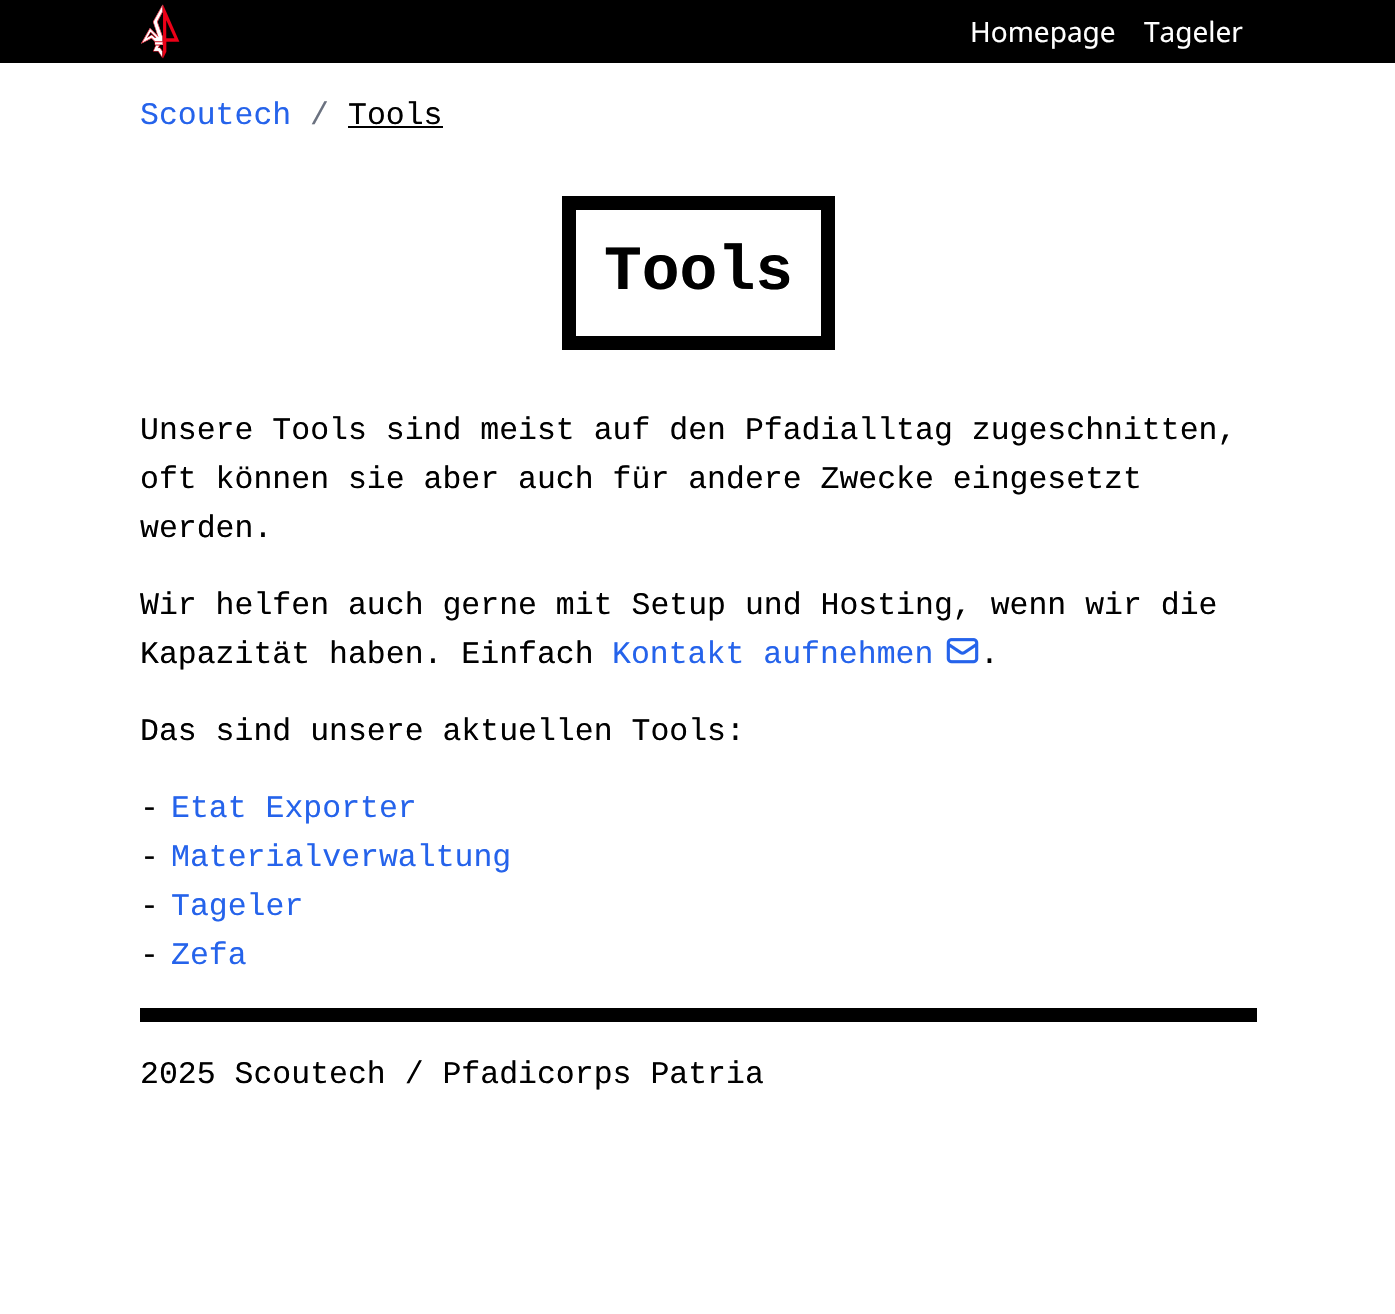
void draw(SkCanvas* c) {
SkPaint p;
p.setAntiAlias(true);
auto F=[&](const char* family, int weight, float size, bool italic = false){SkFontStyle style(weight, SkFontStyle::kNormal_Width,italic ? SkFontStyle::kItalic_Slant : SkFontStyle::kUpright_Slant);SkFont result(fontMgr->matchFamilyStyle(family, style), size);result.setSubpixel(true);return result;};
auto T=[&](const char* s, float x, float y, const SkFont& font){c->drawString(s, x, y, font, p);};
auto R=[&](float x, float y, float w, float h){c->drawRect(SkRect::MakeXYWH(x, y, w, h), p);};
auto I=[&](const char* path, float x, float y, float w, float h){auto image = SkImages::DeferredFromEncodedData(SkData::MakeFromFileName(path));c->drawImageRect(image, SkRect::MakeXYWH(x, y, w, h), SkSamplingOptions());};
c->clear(0xffffffff);
p.setColor(0xff000000);
R(0,0,1395,63);
I("1.png",141,4,39,55);
auto f1 = F("Noto Sans",400,28);
p.setColor(0xffffffff);
T("Homepage",970,42,f1);
T("Tageler",1144,42,f1);
auto f2 = F("Liberation Mono",400,31.5);
p.setColor(0xff2563eb);
T("Scoutech",140,124,f2);
p.setColor(0xff6b7280);
T("/",310,124,f2);
p.setColor(0xff000000);
T("Tools",348,124,f2);
R(348,126,95,2);
p.setStroke(true);
p.setStrokeWidth(14);
c->drawRect(SkRect::MakeXYWH(569,203,259,140),p);
auto f3 = F("Liberation Mono",700,63);
p.setStroke(false);
T("Tools",604,289,f3);
T("Unsere Tools sind meist auf den Pfadialltag zugeschnitten,",140,439,f2);
T("oft können sie aber auch für andere Zwecke eingesetzt",140,488,f2);
T("werden.",140,537,f2);
T("Wir helfen auch gerne mit Setup und Hosting, wenn wir die",140,614,f2);
T("Kapazität haben. Einfach",140,663,f2);
p.setColor(0xff2563eb);
T("Kontakt aufnehmen",612,663,f2);
I("2.png",946,638,33,26);
p.setColor(0xff000000);
T(".",980,663,f2);
T("Das sind unsere aktuellen Tools:",140,740,f2);
T("-",140,817,f2);
p.setColor(0xff2563eb);
T("Etat Exporter",171,817,f2);
p.setColor(0xff000000);
T("-",140,866,f2);
p.setColor(0xff2563eb);
T("Materialverwaltung",171,866,f2);
p.setColor(0xff000000);
T("-",140,915,f2);
p.setColor(0xff2563eb);
T("Tageler",171,915,f2);
p.setColor(0xff000000);
T("-",140,964,f2);
p.setColor(0xff2563eb);
T("Zefa",171,964,f2);
p.setColor(0xff000000);
R(140,1008,1117,14);
T("2025 Scoutech / Pfadicorps Patria",140,1083,f2);
}
